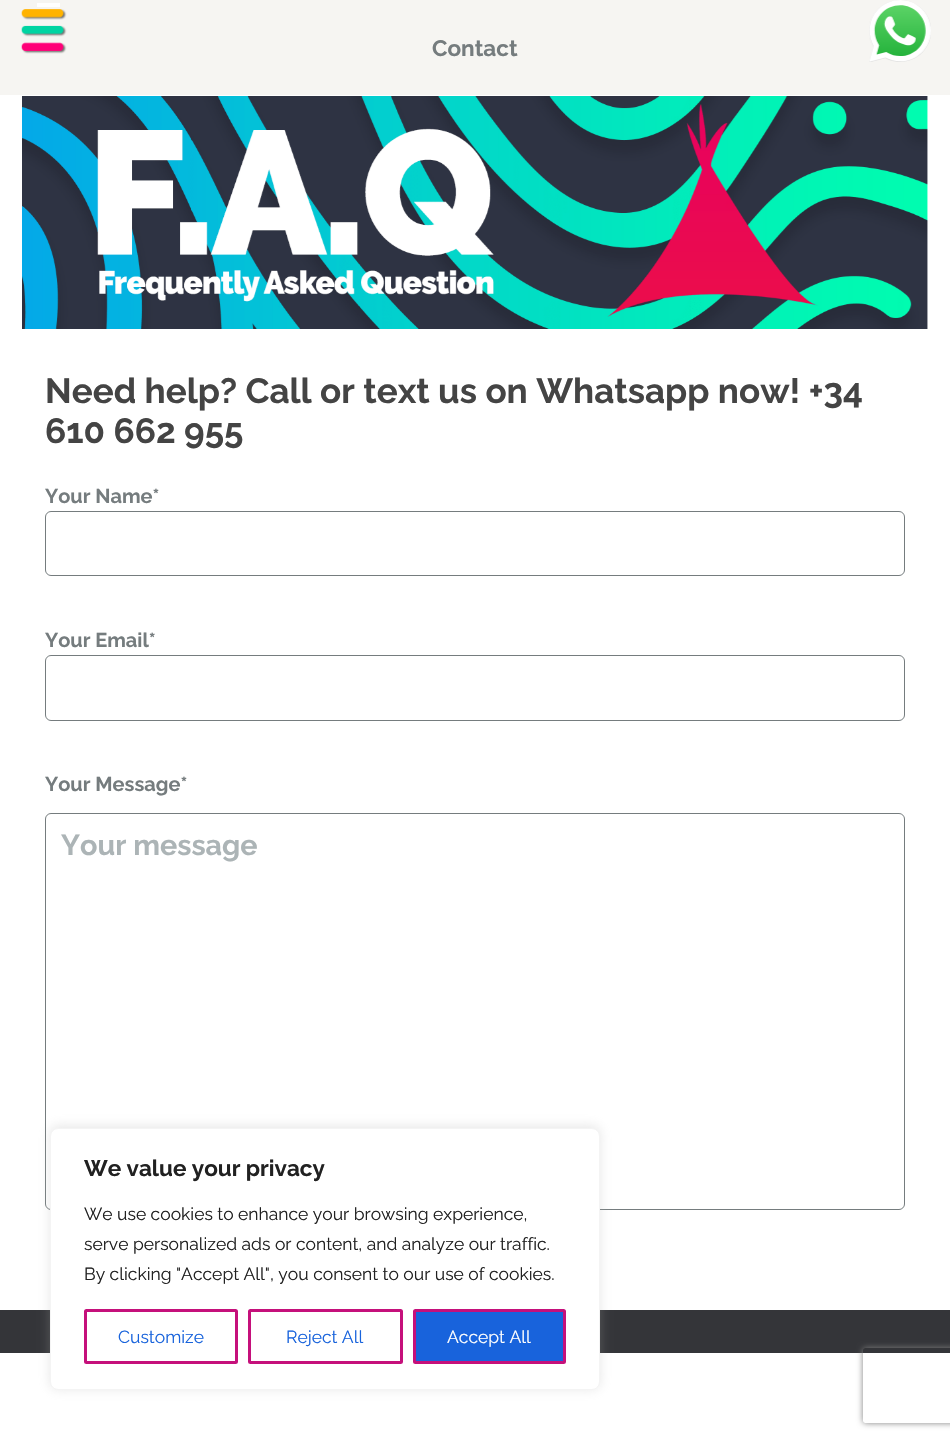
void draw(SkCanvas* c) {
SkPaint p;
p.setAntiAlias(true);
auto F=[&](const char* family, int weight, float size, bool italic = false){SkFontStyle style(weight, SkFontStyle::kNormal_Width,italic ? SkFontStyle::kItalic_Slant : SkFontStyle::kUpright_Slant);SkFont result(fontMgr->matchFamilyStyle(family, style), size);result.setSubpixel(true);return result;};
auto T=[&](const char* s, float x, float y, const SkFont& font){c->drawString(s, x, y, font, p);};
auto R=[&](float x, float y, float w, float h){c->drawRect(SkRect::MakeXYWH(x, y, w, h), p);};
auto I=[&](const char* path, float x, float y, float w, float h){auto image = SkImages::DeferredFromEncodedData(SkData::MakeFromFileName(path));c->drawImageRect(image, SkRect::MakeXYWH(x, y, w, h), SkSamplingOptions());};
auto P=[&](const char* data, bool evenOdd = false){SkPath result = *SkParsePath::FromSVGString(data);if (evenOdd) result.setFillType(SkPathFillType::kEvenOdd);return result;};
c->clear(0xffffffff);
p.setColor(0xfff6f5f2);
R(0,0,950,95);
I("1.png",21,9,46,45);
I("2.png",869,0,62,62);
p.setColor(0xffffffff);
R(37,3,23,4);
auto f1 = F("Raleway",700,22.5);
p.setColor(0xff757c7e);
T("Contact",432,56,f1);
I("3.png",22,96,906,233);
auto f2 = F("Raleway",700,35);
p.setColor(0xff444444);
T("Need help? Call or text us on Whatsapp now! +34",45,403,f2);
T("610 662 955",45,443,f2);
auto f3 = F("Raleway",700,20);
p.setColor(0xff757c7e);
T("Your Name*",45,503,f3);
p.setStroke(true);
p.setStrokeWidth(1);
c->drawRoundRect(SkRect::MakeXYWH(45.5,511.5,859,64),5.5,5.5,p);
p.setStroke(false);
T("Your Email*",45,647,f3);
p.setStroke(true);
c->drawRoundRect(SkRect::MakeXYWH(45.5,655.5,859,65),5.5,5.5,p);
p.setStroke(false);
T("Your Message*",45,791,f3);
p.setStroke(true);
c->drawRoundRect(SkRect::MakeXYWH(45.5,813.5,859,396),5.5,5.5,p);
auto f4 = F("Raleway",700,28.75);
p.setStroke(false);
p.setColor(0xffacb4b6);
T("Your message",61,855,f4);
p.setColor(0xff343539);
R(0,1310,950,43);
p.setColor(0x4dacabab);
p.setMaskFilter(SkMaskFilter::MakeBlur(kNormal_SkBlurStyle, 6));
c->drawRoundRect(SkRect::MakeXYWH(50,1126,550,263),8,8,p);
p.setMaskFilter(nullptr);
p.setColor(0xffffffff);
c->drawRoundRect(SkRect::MakeXYWH(50.5,1128.5,549,261),7.5,7.5,p);
p.setStroke(true);
p.setColor(0xfff4f4f4);
c->drawRoundRect(SkRect::MakeXYWH(50.5,1128.5,549,261),7.5,7.5,p);
p.setStroke(false);
p.setColor(0xff212121);
T("We value your privacy",84,1176,f1);
auto f5 = F("Raleway",400,17.5);
T("We use cookies to enhance your browsing experience,",84,1220,f5);
T("serve personalized ads or content, and analyze our traffic.",84,1250,f5);
T("By clicking \"Accept All\", you consent to our use of cookies.",84,1280,f5);
p.setStroke(true);
p.setStrokeWidth(3);
p.setColor(0xffc5107b);
c->drawRoundRect(SkRect::MakeXYWH(85.5,1310.5,151,52),1,1,p);
p.setStroke(false);
p.setColor(0xff1863dc);
T("Customize",118,1343,f5);
p.setStroke(true);
p.setColor(0xffc5107b);
c->drawRoundRect(SkRect::MakeXYWH(249.5,1310.5,152,52),1,1,p);
p.setStroke(false);
p.setColor(0xff1863dc);
T("Reject All",286,1343,f5);
c->drawRoundRect(SkRect::MakeXYWH(414.5,1310.5,150,52),1,1,p);
p.setStroke(true);
p.setColor(0xffc5107b);
c->drawRoundRect(SkRect::MakeXYWH(414.5,1310.5,150,52),1,1,p);
p.setStroke(false);
p.setColor(0xffffffff);
T("Accept All",447,1343,f5);
c->save();
c->clipPath(P("M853 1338h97v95h-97zm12.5 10h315c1.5 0 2.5 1 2.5 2.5v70c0 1.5-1 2.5-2.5 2.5h-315c-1.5 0-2.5-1-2.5-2.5v-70c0-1.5 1-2.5 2.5-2.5z",true),true);
p.setColor(0xff808080);
p.setMaskFilter(SkMaskFilter::MakeBlur(kNormal_SkBlurStyle, 3));
c->drawRoundRect(SkRect::MakeXYWH(863,1348,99,75),2.5,2.5,p);
p.setMaskFilter(nullptr);
c->restore();
}
